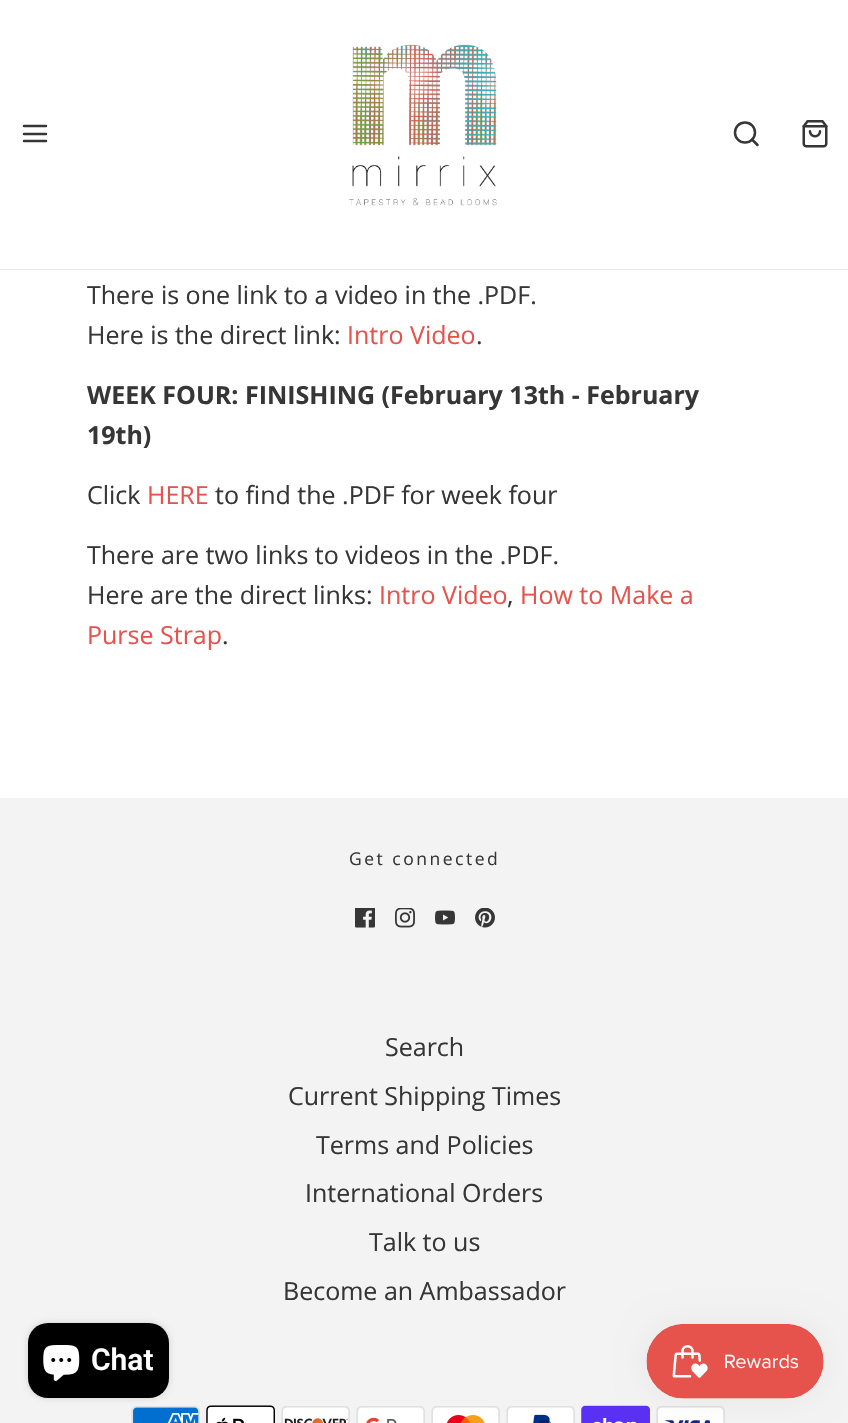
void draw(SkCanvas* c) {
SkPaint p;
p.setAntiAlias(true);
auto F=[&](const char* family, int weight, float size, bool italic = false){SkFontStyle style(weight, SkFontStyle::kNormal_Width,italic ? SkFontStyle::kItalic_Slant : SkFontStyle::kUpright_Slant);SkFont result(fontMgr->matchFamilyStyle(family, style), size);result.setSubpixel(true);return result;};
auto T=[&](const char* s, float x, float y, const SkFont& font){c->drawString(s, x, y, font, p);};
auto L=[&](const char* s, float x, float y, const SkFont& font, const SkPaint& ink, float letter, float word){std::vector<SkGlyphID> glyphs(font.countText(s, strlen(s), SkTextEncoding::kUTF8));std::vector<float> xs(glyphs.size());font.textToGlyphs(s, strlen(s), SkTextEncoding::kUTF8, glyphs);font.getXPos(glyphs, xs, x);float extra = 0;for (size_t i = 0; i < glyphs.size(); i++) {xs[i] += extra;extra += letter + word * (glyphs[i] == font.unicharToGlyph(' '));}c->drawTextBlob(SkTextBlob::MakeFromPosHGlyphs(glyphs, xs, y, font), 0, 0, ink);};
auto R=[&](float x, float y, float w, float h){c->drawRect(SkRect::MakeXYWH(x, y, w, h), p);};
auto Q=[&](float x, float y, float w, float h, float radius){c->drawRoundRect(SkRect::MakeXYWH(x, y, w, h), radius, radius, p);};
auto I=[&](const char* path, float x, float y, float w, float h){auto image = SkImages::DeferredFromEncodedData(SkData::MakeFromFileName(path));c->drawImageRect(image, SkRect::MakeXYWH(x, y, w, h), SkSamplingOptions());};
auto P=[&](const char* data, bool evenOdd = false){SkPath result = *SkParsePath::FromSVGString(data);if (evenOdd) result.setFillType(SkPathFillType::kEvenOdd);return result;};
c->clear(0xffffffff);
p.setColor(0xffebebeb);
R(0,269,848,1);
p.setStroke(true);
p.setStrokeWidth(2.5);
p.setStrokeCap(SkPaint::kRound_Cap);
p.setStrokeJoin(SkPaint::kRound_Join);
p.setColor(0xff363636);
c->drawPath(P("M24 134h22m-22-8h22m-22 15h22"),p);
I("1.png",349,44,148,162);
p.setStrokeCap(SkPaint::kButt_Cap);
p.setStrokeJoin(SkPaint::kMiter_Join);
c->drawCircle(745,132.5,10,p);
p.setStrokeCap(SkPaint::kRound_Cap);
p.setStrokeJoin(SkPaint::kRound_Join);
c->drawPath(P("M757.5 145l-5.5-5.5"),p);
I("2.png",802,120,26,28);
auto f1 = F("Open Sans",400,25);
p.setStroke(false);
T("There is one link to a video in the .PDF.",87,304,f1);
T("Here is the direct link:",87,344,f1);
p.setColor(0xffe5534c);
T("Intro Video",347,344,f1);
p.setColor(0xff363636);
T(".",476,344,f1);
auto f2 = F("Open Sans",700,25);
T("WEEK FOUR: FINISHING (February 13th - February",87,404,f2);
T("19th)",87,444,f2);
T("Click",87,504,f1);
p.setColor(0xffe5534c);
T("HERE",147,504,f1);
p.setColor(0xff363636);
T("to find the .PDF for week four",215,504,f1);
T("There are two links to videos in the .PDF.",87,564,f1);
T("Here are the direct links:",87,604,f1);
p.setColor(0xffe5534c);
T("Intro Video",379,604,f1);
p.setColor(0xff363636);
T(",",507,604,f1);
p.setColor(0xffe5534c);
T("How to Make a",520,604,f1);
T("Purse Strap",87,644,f1);
p.setColor(0xff363636);
T(".",222,644,f1);
p.setColor(0xfff3f3f3);
R(0,798,848,625);
auto f3 = F("Open Sans",400,17.5);
p.setColor(0xff363636);
L("Get connected",349,865,f3,p,2.5,0);
I("3.png",355,908,20,20);
I("4.png",395,908,20,20);
I("5.png",435,910,20,15);
I("6.png",475,908,20,20);
T("Search",385,1056,f1);
T("Current Shipping Times",288,1105,f1);
T("Terms and Policies",316,1154,f1);
T("International Orders",305,1202,f1);
T("Talk to us",369,1251,f1);
T("Become an Ambassador",283,1300,f1);
I("7.png",131,1406,69,17);
I("8.png",206,1405,69,18);
I("9.png",281,1406,69,17);
I("10.png",356,1406,69,17);
I("11.png",431,1406,69,17);
I("12.png",506,1406,69,17);
I("13.png",581,1405,69,18);
I("14.png",656,1406,69,17);
p.setColor(0x26000000);
p.setMaskFilter(SkMaskFilter::MakeBlur(kNormal_SkBlurStyle, 3));
c->drawRoundRect(SkRect::MakeXYWH(28,1323,141,75),20,20,p);
p.setMaskFilter(nullptr);
p.setColor(0xff000000);
Q(28,1323,141,75,20);
I("15.png",43,1345,37,36);
auto f4 = F("Roboto",600,30);
p.setColor(0xffffffff);
T("Chat",91,1370,f4);
p.setColor(0x0d000000);
p.setMaskFilter(SkMaskFilter::MakeBlur(kNormal_SkBlurStyle, 15.5));
c->drawRoundRect(SkRect::MakeXYWH(646,1324,178,75),37.5,37.5,p);
p.setMaskFilter(nullptr);
I("16.png",646,1324,178,75);
}
